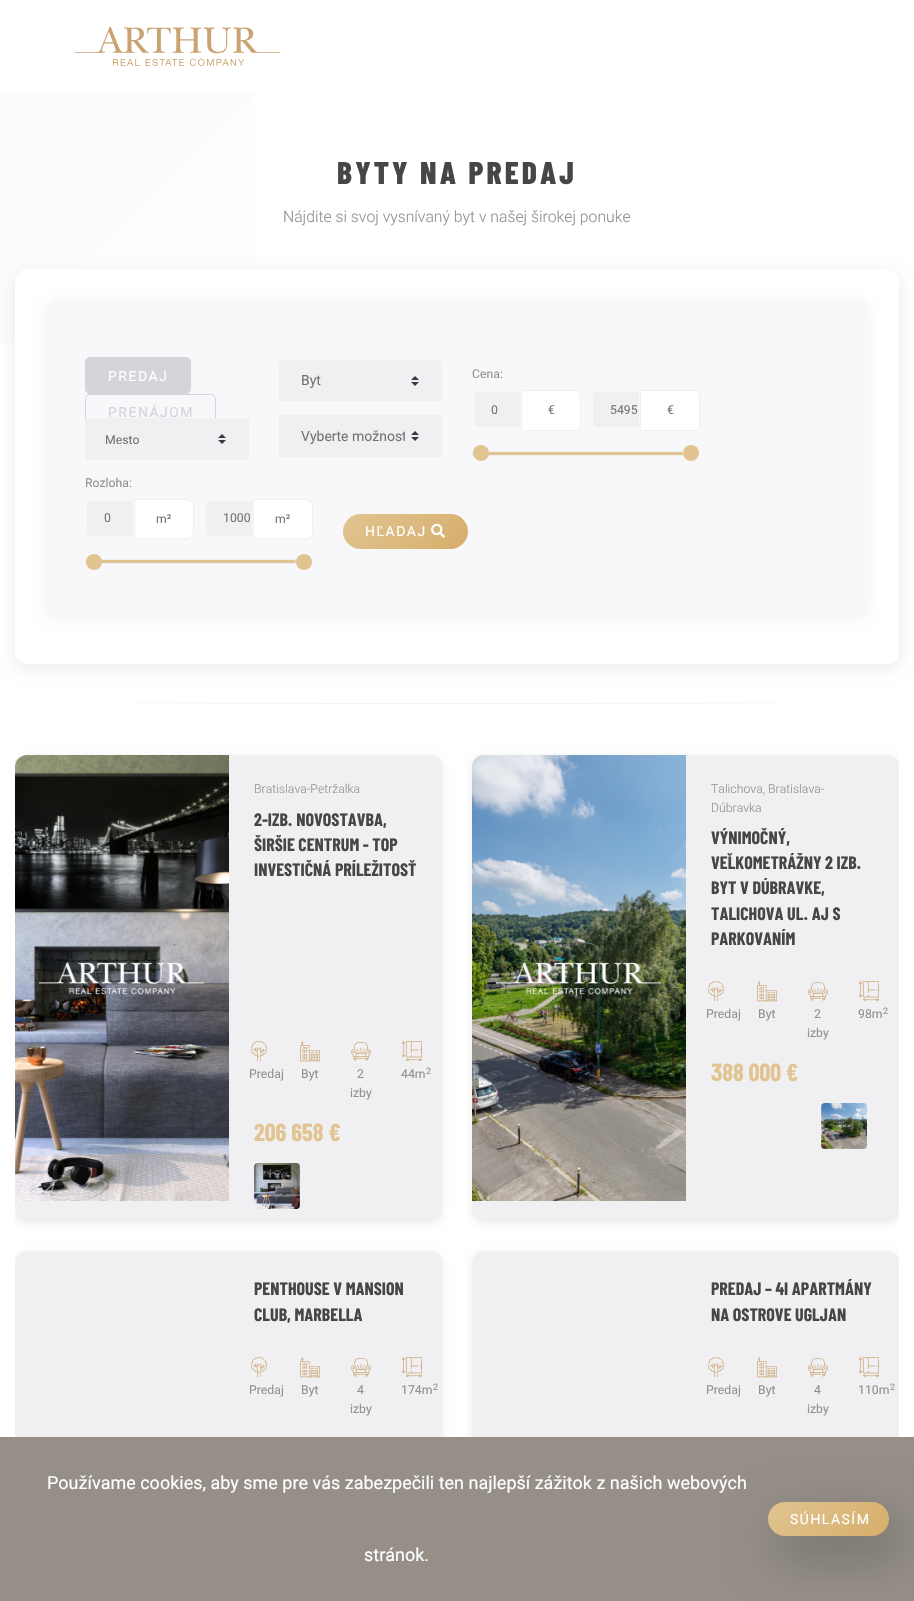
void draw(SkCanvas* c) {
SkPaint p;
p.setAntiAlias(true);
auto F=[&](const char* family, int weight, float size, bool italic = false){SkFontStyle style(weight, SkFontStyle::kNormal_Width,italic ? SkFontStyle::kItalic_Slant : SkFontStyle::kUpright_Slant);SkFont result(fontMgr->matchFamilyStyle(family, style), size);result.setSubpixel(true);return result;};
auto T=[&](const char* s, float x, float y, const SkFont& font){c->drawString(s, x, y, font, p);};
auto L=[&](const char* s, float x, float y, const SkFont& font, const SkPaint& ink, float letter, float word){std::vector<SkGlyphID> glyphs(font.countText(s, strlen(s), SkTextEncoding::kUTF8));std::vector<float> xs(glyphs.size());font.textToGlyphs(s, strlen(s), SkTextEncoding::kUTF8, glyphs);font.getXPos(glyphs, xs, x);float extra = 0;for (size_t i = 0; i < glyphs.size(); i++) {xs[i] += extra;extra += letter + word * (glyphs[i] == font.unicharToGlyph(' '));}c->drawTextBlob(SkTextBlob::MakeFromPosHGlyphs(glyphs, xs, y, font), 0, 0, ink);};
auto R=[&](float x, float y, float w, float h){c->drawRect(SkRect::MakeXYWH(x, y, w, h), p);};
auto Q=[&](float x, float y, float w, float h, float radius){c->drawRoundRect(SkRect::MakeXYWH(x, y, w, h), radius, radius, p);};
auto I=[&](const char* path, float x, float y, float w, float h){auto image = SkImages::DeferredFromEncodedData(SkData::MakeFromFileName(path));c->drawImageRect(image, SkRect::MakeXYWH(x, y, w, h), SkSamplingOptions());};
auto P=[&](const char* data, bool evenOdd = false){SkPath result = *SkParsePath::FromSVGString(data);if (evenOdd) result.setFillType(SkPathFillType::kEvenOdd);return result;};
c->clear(0xffffffff);
I("1.png",75,27,205,39);
{
const SkColor colors[] = {0xfffcfcfd,0xffffffff};
const float stops[] = {0,1};
const SkPoint ends[] = {{76,17}, {838,780}};
p.setShader(SkGradientShader::MakeLinear(ends, colors, stops, 2, SkTileMode::kClamp));
p.setAlpha(255);
}
R(0,93,254,253);
auto f1 = F("Barlow Condensed",800,31.5);
p.setShader(nullptr);
p.setColor(0xff464646);
L("BYTY NA PREDAJ",337,184,f1,p,3.1,0);
auto f2 = F("Roboto",300,15.75);
p.setColor(0xff919090);
T("Nájdite si svoj vysnívaný byt v našej širokej ponuke",283,222,f2);
p.setColor(0x14000000);
p.setMaskFilter(SkMaskFilter::MakeBlur(kNormal_SkBlurStyle, 8));
c->drawRoundRect(SkRect::MakeXYWH(15,273,884,395),12,12,p);
p.setMaskFilter(nullptr);
p.setColor(0xffffffff);
Q(15,269,884,395,12);
p.setColor(0x0d000000);
p.setMaskFilter(SkMaskFilter::MakeBlur(kNormal_SkBlurStyle, 6));
c->drawRoundRect(SkRect::MakeXYWH(45,303,824,315),12,12,p);
p.setMaskFilter(nullptr);
p.setColor(0xfff8f8fa);
Q(45,299,824,315,12);
p.setColor(0xffd4d4da);
c->drawRoundRect(SkRect::MakeXYWH(85.5,357.5,105,36),4.5,4.5,p);
p.setStroke(true);
p.setStrokeWidth(1);
c->drawRoundRect(SkRect::MakeXYWH(85.5,357.5,105,36),4.5,4.5,p);
auto f3 = F("Roboto",400,14);
p.setStroke(false);
p.setColor(0xffffffff);
L("PREDAJ",108,381,f3,p,1.5,0);
p.setStroke(true);
p.setColor(0xffd4d4da);
c->drawRoundRect(SkRect::MakeXYWH(85.5,394.5,130,35),4.5,4.5,p);
p.setStroke(false);
L("PRENÁJOM",108,417,f3,p,1.5,0);
p.setColor(0xfff0f0f2);
Q(85,418,164,42,4);
I("2.png",218,434,8,10);
p.setStroke(true);
c->drawRoundRect(SkRect::MakeXYWH(85.5,418.5,163,41),3.5,3.5,p);
auto f4 = F("Roboto",400,12.25);
p.setStroke(false);
p.setColor(0xff777272);
T("Mesto",105,444,f4);
p.setColor(0xfff0f0f2);
Q(279,360,163,41,4);
I("2.png",411,376,8,10);
p.setColor(0xff777272);
T("Byt",301,385,f3);
p.setColor(0xfff0f0f2);
Q(279,415,163,42,4);
I("2.png",411,431,8,10);
c->save();
c->clipRect(SkRect::MakeXYWH(301,426,104,21));
p.setColor(0xff777272);
T("Vyberte možnosť",301,441,f3);
c->restore();
p.setColor(0xff919090);
T("Cena:",472,378,f4);
p.setColor(0xfff0f0f2);
c->drawPath(P("M479 392h41v35h-41c-3 0-5-2-5-5v-25c0-3 2-5 5-5z"),p);
p.setColor(0xff777272);
T("0",491,414,f4);
p.setColor(0xffffffff);
c->drawPath(P("M521.5 390.5h52.5c3.5 0 6.5 3 6.5 6.5v27c0 3.5-3 6.5-6.5 6.5h-52.5z"),p);
p.setStroke(true);
p.setColor(0xfff0f0f2);
c->drawPath(P("M521.5 390.5h52.5c3.5 0 6.5 3 6.5 6.5v27c0 3.5-3 6.5-6.5 6.5h-52.5z"),p);
p.setStroke(false);
p.setColor(0xff777272);
T("€",548,414,f4);
p.setColor(0xfff0f0f2);
c->drawPath(P("M598 392h41v35h-41c-3 0-5-2-5-5v-25c0-3 2-5 5-5z"),p);
p.setColor(0xff777272);
T("5495",610,414,f4);
p.setColor(0xffffffff);
c->drawPath(P("M640.5 390.5h52.5c3.5 0 6.5 3 6.5 6.5v27c0 3.5-3 6.5-6.5 6.5h-52.5z"),p);
p.setStroke(true);
p.setColor(0xfff0f0f2);
c->drawPath(P("M640.5 390.5h52.5c3.5 0 6.5 3 6.5 6.5v27c0 3.5-3 6.5-6.5 6.5h-52.5z"),p);
p.setStroke(false);
p.setColor(0xff777272);
T("€",667,414,f4);
p.setColor(0xfff0f0f2);
Q(472,451,212,5,2.5);
p.setColor(0xffe1c492);
Q(473,452,210,3,1.5);
c->drawCircle(481,453,8,p);
c->drawCircle(691,453,8,p);
p.setColor(0xff919090);
T("Rozloha:",85,487,f4);
p.setColor(0xfff0f0f2);
c->drawPath(P("M92 501h41v35h-41c-3 0-5-2-5-5v-25c0-3 2-5 5-5z"),p);
p.setColor(0xff777272);
T("0",104,522,f4);
p.setColor(0xffffffff);
c->drawPath(P("M134.5 499.5h52.5c3.5 0 6.5 3 6.5 6.5v26c0 3.5-3 6.5-6.5 6.5h-52.5z"),p);
p.setStroke(true);
p.setColor(0xfff0f0f2);
c->drawPath(P("M134.5 499.5h52.5c3.5 0 6.5 3 6.5 6.5v26c0 3.5-3 6.5-6.5 6.5h-52.5z"),p);
p.setStroke(false);
p.setColor(0xff777272);
T("m²",156,523,f4);
p.setColor(0xfff0f0f2);
c->drawPath(P("M211 501h41v35h-41c-3 0-5-2-5-5v-25c0-3 2-5 5-5z"),p);
p.setColor(0xff777272);
T("1000",223,522,f4);
p.setColor(0xffffffff);
c->drawPath(P("M253.5 499.5h52.5c3.5 0 6.5 3 6.5 6.5v26c0 3.5-3 6.5-6.5 6.5h-52.5z"),p);
p.setStroke(true);
p.setColor(0xfff0f0f2);
c->drawPath(P("M253.5 499.5h52.5c3.5 0 6.5 3 6.5 6.5v26c0 3.5-3 6.5-6.5 6.5h-52.5z"),p);
p.setStroke(false);
p.setColor(0xff777272);
T("m²",275,523,f4);
p.setColor(0xfff0f0f2);
Q(85,559,212,5,2.5);
p.setColor(0xffe1c492);
Q(86,560,210,3,1.5);
c->drawCircle(94,562,8,p);
c->drawCircle(304,562,8,p);
{
const SkColor colors[] = {0xffe1c492,0xffd6ae6a};
const float stops[] = {0,1};
const SkPoint ends[] = {{366,492}, {446,572}};
p.setShader(SkGradientShader::MakeLinear(ends, colors, stops, 2, SkTileMode::kClamp));
p.setAlpha(255);
}
Q(343,514,125,35,17.5);
p.setShader(nullptr);
p.setColor(0xffffffff);
L("HĽADAJ",365,536,f3,p,1.5,0);
I("3.png",431,523,14,15);
{
const SkColor colors[] = {0xfffefefe,0xfff2f2f3,0xfffefefe};
const float stops[] = {0,.5,1};
const SkPoint ends[] = {{0,704}, {914,704}};
p.setShader(SkGradientShader::MakeLinear(ends, colors, stops, 3, SkTileMode::kClamp));
p.setAlpha(255);
}
R(57,703,800,1);
c->save();
c->clipRect(SkRect::MakeXYWH(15,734,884,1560));
p.setShader(nullptr);
p.setColor(0x14000000);
p.setMaskFilter(SkMaskFilter::MakeBlur(kNormal_SkBlurStyle, 4));
c->drawRoundRect(SkRect::MakeXYWH(15,757,427,466),12,12,p);
p.setMaskFilter(nullptr);
c->restore();
p.setColor(0xfff0f0f2);
Q(15,755,427,466,12);
I("4.png",15,755,214,446);
auto f5 = F("Roboto",300,12.25);
p.setColor(0xff919090);
T("Bratislava-Petržalka",254,793,f5);
auto f6 = F("Barlow Condensed",700,18);
p.setColor(0xff464646);
T("2-IZB. NOVOSTAVBA,",254,826,f6);
T("ŠIRŠIE CENTRUM - TOP",254,851,f6);
T("INVESTIČNÁ PRÍLEŽITOSŤ",254,876,f6);
I("5.png",251,1041,16,21);
p.setColor(0xff919090);
T("Predaj",249,1078,f4);
I("6.png",300,1041,20,21);
T("Byt",301,1078,f4);
I("7.png",351,1042,20,19);
T("2",357,1078,f4);
T("izby",350,1097,f4);
I("8.png",402,1041,20,21);
T("44m",401,1078,f4);
auto f7 = F("Roboto",400,9);
T("2",426,1074,f7);
auto f8 = F("Barlow Condensed",700,24.5);
p.setColor(0xffe1c492);
T("206 658 €",254,1141,f8);
I("9.png",254,1163,46,46);
c->save();
c->clipRect(SkRect::MakeXYWH(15,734,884,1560));
p.setColor(0x14000000);
p.setMaskFilter(SkMaskFilter::MakeBlur(kNormal_SkBlurStyle, 4));
c->drawRoundRect(SkRect::MakeXYWH(472,757,427,466),12,12,p);
p.setMaskFilter(nullptr);
c->restore();
p.setColor(0xfff0f0f2);
Q(472,755,427,466,12);
I("10.png",472,755,214,446);
p.setColor(0xff919090);
T("Talichova, Bratislava-",711,793,f5);
T("Dúbravka",711,812,f5);
p.setColor(0xff464646);
T("VÝNIMOČNÝ,",711,844,f6);
T("VEĽKOMETRÁŽNY 2 IZB.",711,869,f6);
T("BYT V DÚBRAVKE,",711,894,f6);
T("TALICHOVA UL. AJ S",711,920,f6);
T("PARKOVANÍM",711,945,f6);
I("5.png",708,981,16,21);
p.setColor(0xff919090);
T("Predaj",706,1018,f4);
I("6.png",757,981,20,21);
T("Byt",758,1018,f4);
I("7.png",808,982,20,19);
T("2",814,1018,f4);
T("izby",807,1037,f4);
I("8.png",859,981,20,21);
T("98m",858,1018,f4);
T("2",883,1014,f7);
p.setColor(0xffe1c492);
T("388 000 €",711,1081,f8);
I("11.png",821,1103,46,46);
c->save();
c->clipRect(SkRect::MakeXYWH(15,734,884,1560));
p.setColor(0x14000000);
p.setMaskFilter(SkMaskFilter::MakeBlur(kNormal_SkBlurStyle, 4));
c->drawRoundRect(SkRect::MakeXYWH(15,1253,427,346),12,12,p);
p.setMaskFilter(nullptr);
c->restore();
p.setColor(0xfff0f0f2);
Q(15,1251,427,346,12);
p.setColor(0xff464646);
T("PENTHOUSE V MANSION",254,1295,f6);
T("CLUB, MARBELLA",254,1321,f6);
I("5.png",251,1357,16,21);
p.setColor(0xff919090);
T("Predaj",249,1394,f4);
I("6.png",300,1357,20,21);
T("Byt",301,1394,f4);
I("7.png",351,1358,20,19);
T("4",357,1394,f4);
T("izby",350,1413,f4);
I("8.png",402,1357,20,21);
T("174m",401,1394,f4);
T("2",433,1390,f7);
c->save();
c->clipRect(SkRect::MakeXYWH(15,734,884,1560));
p.setColor(0x14000000);
p.setMaskFilter(SkMaskFilter::MakeBlur(kNormal_SkBlurStyle, 4));
c->drawRoundRect(SkRect::MakeXYWH(472,1253,427,346),12,12,p);
p.setMaskFilter(nullptr);
c->restore();
p.setColor(0xfff0f0f2);
Q(472,1251,427,346,12);
p.setColor(0xff464646);
T("PREDAJ – 4I APARTMÁNY",711,1295,f6);
T("NA OSTROVE UGLJAN",711,1321,f6);
I("5.png",708,1357,16,21);
p.setColor(0xff919090);
T("Predaj",706,1394,f4);
I("6.png",757,1357,20,21);
T("Byt",758,1394,f4);
I("7.png",808,1358,20,19);
T("4",814,1394,f4);
T("izby",807,1413,f4);
I("8.png",859,1357,20,21);
T("110m",858,1394,f4);
T("2",890,1390,f7);
p.setColor(0xff958f88);
R(0,1437,914,164);
auto f9 = F("Roboto",400,18);
p.setColor(0xffffffff);
T("Používame cookies, aby sme pre vás zabezpečili ten najlepší zážitok z našich webových",47,1489,f9);
T("stránok.",364,1561,f9);
p.setColor(0x2e000000);
p.setMaskFilter(SkMaskFilter::MakeBlur(kNormal_SkBlurStyle, 23.5));
c->drawRoundRect(SkRect::MakeXYWH(772,1514,135,48),24,24,p);
p.setMaskFilter(nullptr);
{
const SkColor colors[] = {0xffe1c492,0xffd6ae6a};
const float stops[] = {0,1};
const SkPoint ends[] = {{790,1480}, {867,1558}};
p.setShader(SkGradientShader::MakeLinear(ends, colors, stops, 2, SkTileMode::kClamp));
p.setAlpha(255);
}
Q(768,1502,121,34,17);
p.setShader(nullptr);
p.setColor(0xffffffff);
L("SÚHLASÍM",790,1524,f3,p,1.5,0);
}
